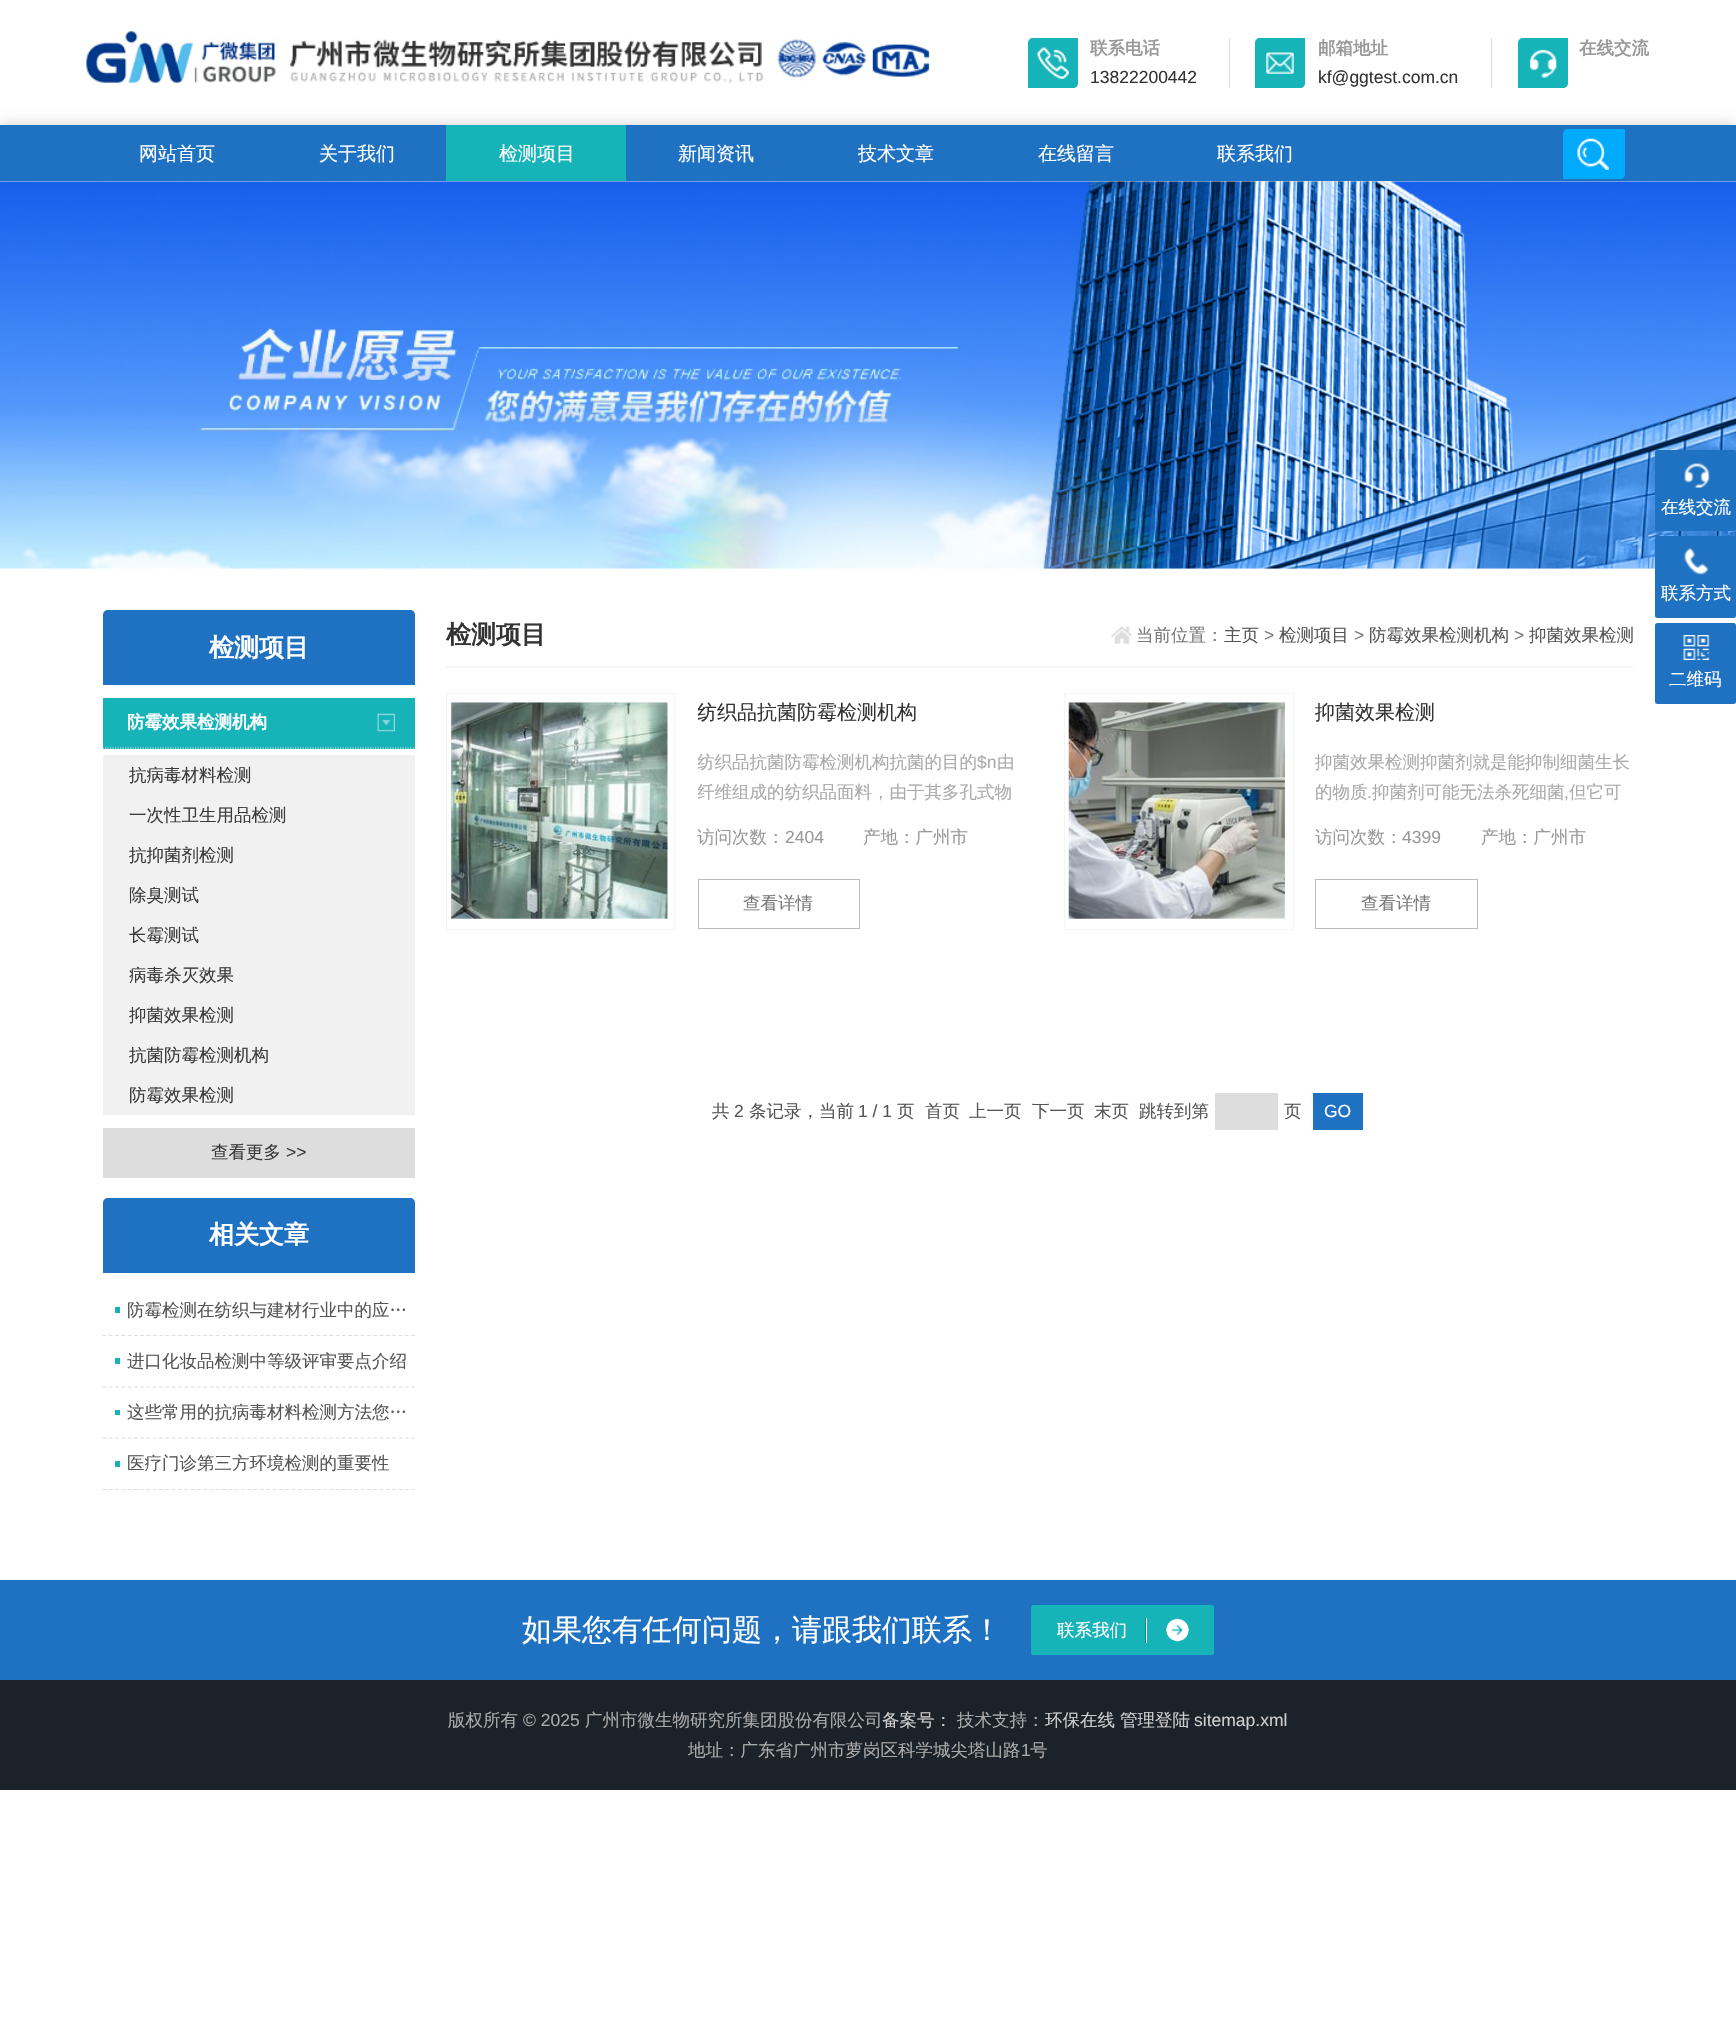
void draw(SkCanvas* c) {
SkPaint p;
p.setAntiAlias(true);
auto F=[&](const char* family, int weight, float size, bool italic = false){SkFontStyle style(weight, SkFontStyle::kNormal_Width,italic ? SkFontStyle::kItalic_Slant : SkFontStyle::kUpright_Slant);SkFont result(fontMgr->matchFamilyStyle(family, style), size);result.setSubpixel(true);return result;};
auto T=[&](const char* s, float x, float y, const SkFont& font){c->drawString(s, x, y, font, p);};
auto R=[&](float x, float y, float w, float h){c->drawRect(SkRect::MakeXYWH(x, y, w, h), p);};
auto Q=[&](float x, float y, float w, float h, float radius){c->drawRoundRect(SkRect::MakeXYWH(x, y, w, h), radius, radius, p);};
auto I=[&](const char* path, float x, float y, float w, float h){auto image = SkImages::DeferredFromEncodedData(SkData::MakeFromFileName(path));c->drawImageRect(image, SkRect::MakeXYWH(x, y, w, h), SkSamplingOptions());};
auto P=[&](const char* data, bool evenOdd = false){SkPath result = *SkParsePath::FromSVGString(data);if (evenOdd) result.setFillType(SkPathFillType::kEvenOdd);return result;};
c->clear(0xffffffff);
I("1.png",86,31,844,52);
p.setColor(0xffdddddd);
R(1229,38,1,50);
p.setColor(0xff16b4b9);
c->drawPath(P("M1033 38h45v45c0 3-2 5-5 5h-45v-45c0-3 2-5 5-5z"),p);
I("2.png",1037,47,32,32);
auto f1 = F("WenQuanYi Zen Hei",700,17.5);
p.setColor(0xff999999);
T("联系电话",1090,54,f1);
auto f2 = F("Liberation Sans",400,17.5);
p.setColor(0xff333333);
T("13822200442",1090,83,f2);
p.setColor(0xffdddddd);
R(1491,38,1,50);
p.setColor(0xff16b4b9);
c->drawPath(P("M1260 38h45v45c0 3-2 5-5 5h-45v-45c0-3 2-5 5-5z"),p);
I("3.png",1266,52,28,22);
p.setColor(0xff999999);
T("邮箱地址",1318,54,f1);
p.setColor(0xff333333);
T("kf@ggtest.com.cn",1318,83,f2);
p.setColor(0xff16b4b9);
c->drawPath(P("M1523 38h45v45c0 3-2 5-5 5h-45v-45c0-3 2-5 5-5z"),p);
I("4.png",1529,49,28,29);
p.setColor(0xff999999);
T("在线交流",1579,54,f1);
p.setColor(0x33000000);
p.setMaskFilter(SkMaskFilter::MakeBlur(kNormal_SkBlurStyle, 6));
c->drawRect(SkRect::MakeXYWH(0,125,1736,56),p);
p.setMaskFilter(nullptr);
p.setColor(0xff1f71c2);
R(0,125,1736,56);
auto f3 = F("WenQuanYi Zen Hei",500,19);
p.setColor(0xffffffff);
T("网站首页",139,160,f3);
T("关于我们",319,160,f3);
p.setColor(0xff16b4b9);
R(446,125,180,56);
p.setColor(0xffffffff);
T("检测项目",499,160,f3);
T("新闻资讯",678,160,f3);
T("技术文章",858,160,f3);
T("在线留言",1038,160,f3);
T("联系我们",1217,160,f3);
p.setColor(0xff00abfd);
c->drawPath(P("M1568 129h57v45c0 3-2 5-5 5h-57v-45c0-3 2-5 5-5z"),p);
I("5.png",1577,138,32,32);
I("6.png",0,181,1736,388);
p.setColor(0xff1f71c2);
Q(1655,450,81,81,2.5);
I("7.png",1684,463,26,25);
auto f4 = F("WenQuanYi Zen Hei",500,17.5);
p.setColor(0xffffffff);
T("在线交流",1661,513,f4);
p.setColor(0xff1f71c2);
Q(1655,536,81,82,2.5);
I("8.png",1684,548,25,27);
p.setColor(0xffffffff);
T("联系方式",1661,599,f4);
p.setColor(0xff1f71c2);
Q(1655,623,81,81,2.5);
I("9.png",1683,635,27,25);
p.setColor(0xffffffff);
T("二维码",1669,685,f4);
p.setColor(0xff1f71c2);
c->drawPath(P("M108 610h302c3 0 5 2 5 5v70h-312v-70c0-3 2-5 5-5z"),p);
auto f5 = F("WenQuanYi Zen Hei",700,25);
p.setColor(0xffffffff);
T("检测项目",209,656,f5);
p.setColor(0xff16b4b9);
R(103,698,312,51);
p.setStroke(true);
p.setStrokeWidth(1.2);
p.setColor(0xffdedede);
p.setPathEffect(SkDashPathEffect::Make({{1.25f,1.25f}}, 0));
c->drawPath(P("M102.5 748h312.5"),p);
p.setPathEffect(nullptr);
p.setStroke(false);
p.setColor(0xffffffff);
T("防霉效果检测机构",127,728,f1);
I("10.png",377,713,18,19);
p.setColor(0xfff1f1f1);
R(103,755,312,360);
p.setColor(0xff3a3a3a);
T("抗病毒材料检测",129,781,f4);
T("一次性卫生用品检测",129,821,f4);
T("抗抑菌剂检测",129,861,f4);
T("除臭测试",129,901,f4);
T("长霉测试",129,941,f4);
T("病毒杀灭效果",129,981,f4);
T("抑菌效果检测",129,1021,f4);
T("抗菌防霉检测机构",129,1061,f4);
T("防霉效果检测",129,1101,f4);
p.setColor(0xffdddddd);
R(103,1128,312,50);
p.setColor(0xff3a3a3a);
T("查看更多",211,1158,f4);
T(">>",286,1158,f2);
p.setColor(0xff1f71c2);
c->drawPath(P("M108 1198h302c3 0 5 2 5 5v70h-312v-70c0-3 2-5 5-5z"),p);
p.setColor(0xffffffff);
T("相关文章",209,1243,f5);
p.setColor(0xff16b4b9);
R(115,1307,5,6);
p.setStroke(true);
p.setColor(0xffdedede);
p.setPathEffect(SkDashPathEffect::Make({{3.75f,2.55f}}, 0));
c->drawPath(P("M102.5 1335.5h312.5"),p);
p.setPathEffect(nullptr);
p.setStroke(false);
p.setColor(0xff555555);
T("防霉检测在纺织与建材行业中的应…",127,1316,f4);
p.setColor(0xff16b4b9);
R(115,1358,5,6);
p.setStroke(true);
p.setColor(0xffdedede);
p.setPathEffect(SkDashPathEffect::Make({{3.75f,2.55f}}, 0));
c->drawPath(P("M102.5 1387h312.5"),p);
p.setPathEffect(nullptr);
p.setStroke(false);
p.setColor(0xff555555);
T("进口化妆品检测中等级评审要点介绍",127,1367,f4);
p.setColor(0xff16b4b9);
R(115,1410,5,5);
p.setStroke(true);
p.setColor(0xffdedede);
p.setPathEffect(SkDashPathEffect::Make({{3.75f,2.55f}}, 0));
c->drawPath(P("M102.5 1438h312.5"),p);
p.setPathEffect(nullptr);
p.setStroke(false);
p.setColor(0xff555555);
T("这些常用的抗病毒材料检测方法您…",127,1418,f4);
p.setColor(0xff16b4b9);
R(115,1461,5,6);
p.setStroke(true);
p.setColor(0xffdedede);
p.setPathEffect(SkDashPathEffect::Make({{3.75f,2.55f}}, 0));
c->drawPath(P("M102.5 1489.5h312.5"),p);
p.setPathEffect(nullptr);
p.setStroke(false);
p.setColor(0xff555555);
T("医疗门诊第三方环境检测的重要性",127,1469,f4);
p.setStroke(true);
p.setColor(0xffdedede);
p.setPathEffect(SkDashPathEffect::Make({{1.25f,1.25f}}, 0));
c->drawPath(P("M446 667h1188"),p);
p.setPathEffect(nullptr);
p.setStroke(false);
p.setColor(0xff333333);
T("检测项目",446,643,f5);
I("11.png",1111,626,21,18);
p.setColor(0xff787878);
T("当前位置：",1136,641,f4);
p.setColor(0xff555555);
T("主页",1224,641,f4);
p.setColor(0xff787878);
T(">",1264,641,f2);
p.setColor(0xff555555);
T("检测项目",1279,641,f4);
p.setColor(0xff787878);
T(">",1354,641,f2);
p.setColor(0xff555555);
T("防霉效果检测机构",1369,641,f4);
p.setColor(0xff787878);
T(">",1514,641,f2);
p.setColor(0xff555555);
T("抑菌效果检测",1529,641,f4);
p.setStroke(true);
p.setStrokeWidth(1);
p.setColor(0xfff5f5f5);
c->drawRect(SkRect::MakeXYWH(446.5,693.5,229,236),p);
I("12.png",451,702,217,217);
c->save();
c->clipRect(SkRect::MakeXYWH(698,693,318,42));
auto f6 = F("WenQuanYi Zen Hei",500,20);
p.setStroke(false);
p.setColor(0xff333333);
T("纺织品抗菌防霉检测机构",697,719,f6);
c->restore();
c->save();
c->clipRect(SkRect::MakeXYWH(698,748,318,60));
p.setColor(0xffaaaaaa);
T("纺织品抗菌防霉检测机构抗菌的目的",697,768,f4);
c->restore();
T("$n",977,768,f2);
T("由",997,768,f4);
c->save();
c->clipRect(SkRect::MakeXYWH(698,748,318,60));
T("纤维组成的纺织品面料，由于其多孔式物",697,798,f4);
c->restore();
p.setColor(0xff999999);
T("访问次数：",697,843,f4);
T("2404",785,843,f2);
T("产地：广州市",863,843,f4);
p.setStroke(true);
p.setColor(0xffbbbbbb);
c->drawRect(SkRect::MakeXYWH(698.5,879.5,161,49),p);
p.setStroke(false);
p.setColor(0xff787878);
T("查看详情",743,909,f4);
p.setStroke(true);
p.setColor(0xfff5f5f5);
c->drawRect(SkRect::MakeXYWH(1064.5,693.5,229,236),p);
I("13.png",1068,702,217,217);
p.setStroke(false);
p.setColor(0xff333333);
T("抑菌效果检测",1315,719,f6);
p.setColor(0xffaaaaaa);
T("抑菌效果检测抑菌剂就是能抑制细菌生长",1315,768,f4);
T("的物质",1315,798,f4);
T(".",1367,798,f2);
T("抑菌剂可能无法杀死细菌",1372,798,f4);
T(",",1564,798,f2);
T("但它可",1569,798,f4);
p.setColor(0xff999999);
T("访问次数：",1315,843,f4);
T("4399",1402,843,f2);
T("产地：广州市",1481,843,f4);
p.setStroke(true);
p.setColor(0xffbbbbbb);
c->drawRect(SkRect::MakeXYWH(1315.5,879.5,162,49),p);
p.setStroke(false);
p.setColor(0xff787878);
T("查看详情",1361,909,f4);
p.setColor(0xff555555);
T("共",712,1117,f4);
T("2",734,1117,f2);
T("条记录，当前",749,1117,f4);
T("1 / 1",858,1117,f2);
T("页",897,1117,f4);
T("首页",925,1117,f4);
T("上一页",969,1117,f4);
T("下一页",1032,1117,f4);
T("末页",1094,1117,f4);
T("跳转到第",1139,1117,f4);
p.setColor(0xffdddddd);
R(1215,1093,63,37);
p.setColor(0xff555555);
T("页",1284,1117,f4);
p.setColor(0xff1f71c2);
R(1313,1093,50,37);
p.setColor(0xffffffff);
T("GO",1324,1117,f2);
p.setColor(0xff1f71c2);
R(0,1580,1736,100);
auto f7 = F("WenQuanYi Zen Hei",500,30);
p.setColor(0xffffffff);
T("如果您有任何问题，请跟我们联系！",522,1640,f7);
p.setColor(0xff16b4b9);
Q(1031,1605,183,50,2.5);
p.setColor(0xff138488);
R(1145,1618,1,25);
p.setColor(0xffffffff);
T("联系我们",1057,1636,f4);
R(1146,1618,1,25);
I("14.png",1166,1618,23,24);
p.setColor(0xff1c222a);
R(0,1680,1736,110);
p.setColor(0xffaaaaaa);
T("版权所有",448,1726,f4);
T("© 2025",523,1726,f2);
T("广州市微生物研究所集团股份有限公司",585,1726,f4);
p.setColor(0xffcecece);
T("备案号：",882,1726,f4);
p.setColor(0xffaaaaaa);
T("技术支持：",957,1726,f4);
p.setColor(0xffcecece);
T("环保在线",1045,1726,f4);
T("管理登陆",1120,1726,f4);
T("sitemap.xml",1194,1726,f2);
p.setColor(0xffaaaaaa);
T("地址：广东省广州市萝岗区科学城尖塔山路",688,1756,f4);
T("1",1021,1756,f2);
T("号",1030,1756,f4);
}
